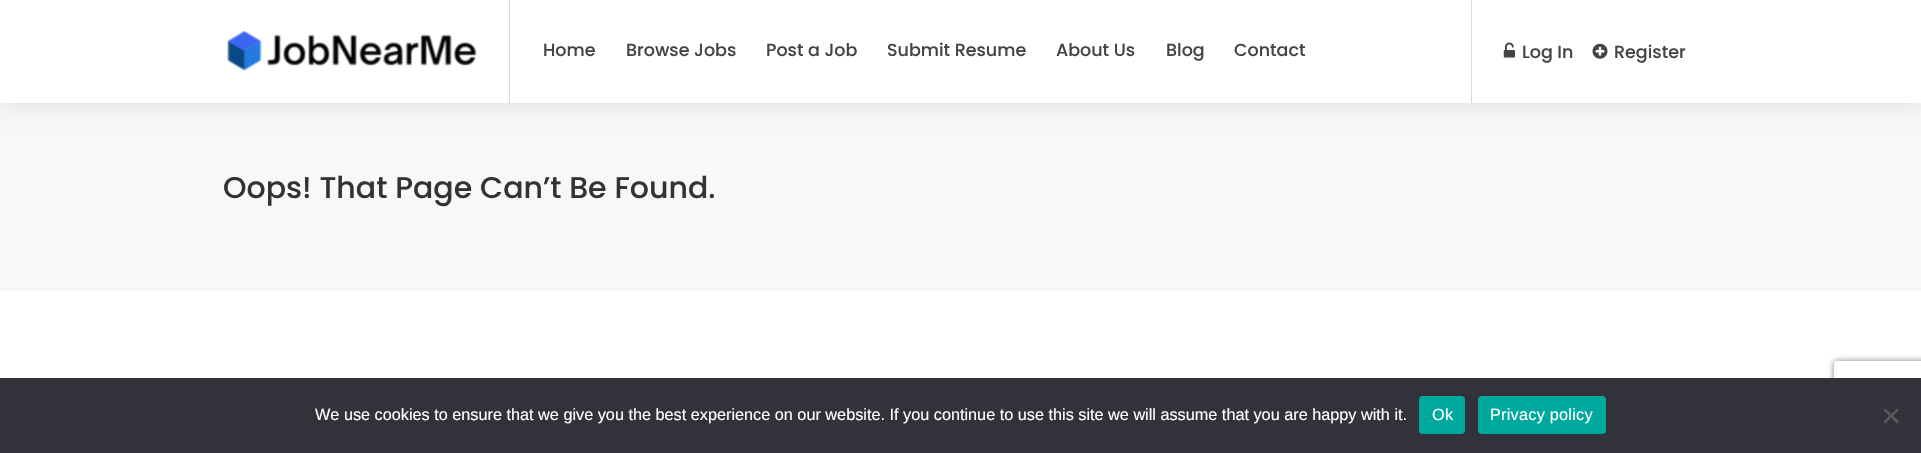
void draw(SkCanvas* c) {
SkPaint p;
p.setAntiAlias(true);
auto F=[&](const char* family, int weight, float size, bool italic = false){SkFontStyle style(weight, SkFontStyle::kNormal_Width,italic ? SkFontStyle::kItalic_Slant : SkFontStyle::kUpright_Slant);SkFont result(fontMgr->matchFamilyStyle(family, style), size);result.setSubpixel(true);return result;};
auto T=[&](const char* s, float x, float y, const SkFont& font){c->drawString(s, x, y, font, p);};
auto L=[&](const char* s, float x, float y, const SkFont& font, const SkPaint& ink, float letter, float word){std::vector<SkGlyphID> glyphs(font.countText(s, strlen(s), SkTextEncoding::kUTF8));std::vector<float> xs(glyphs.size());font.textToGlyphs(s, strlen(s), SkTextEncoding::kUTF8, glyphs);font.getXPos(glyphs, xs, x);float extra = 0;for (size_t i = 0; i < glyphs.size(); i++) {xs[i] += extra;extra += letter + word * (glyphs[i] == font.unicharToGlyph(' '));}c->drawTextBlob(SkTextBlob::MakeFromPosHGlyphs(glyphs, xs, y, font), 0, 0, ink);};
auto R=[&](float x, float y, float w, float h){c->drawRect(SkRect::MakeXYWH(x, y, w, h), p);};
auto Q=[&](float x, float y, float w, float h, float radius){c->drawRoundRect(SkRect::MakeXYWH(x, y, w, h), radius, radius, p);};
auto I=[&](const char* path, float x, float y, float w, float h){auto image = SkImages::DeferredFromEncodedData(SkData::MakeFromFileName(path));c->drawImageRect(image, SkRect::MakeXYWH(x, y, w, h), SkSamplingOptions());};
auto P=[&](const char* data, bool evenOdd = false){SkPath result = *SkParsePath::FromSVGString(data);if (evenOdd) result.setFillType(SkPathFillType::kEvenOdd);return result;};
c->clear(0xffffffff);
p.setColor(0xfff8f8f8);
R(0,103,1921,188);
p.setColor(0x1f000000);
p.setMaskFilter(SkMaskFilter::MakeBlur(kNormal_SkBlurStyle, 11));
c->drawRect(SkRect::MakeXYWH(0,0,1921,103),p);
p.setMaskFilter(nullptr);
p.setColor(0xffffffff);
R(0,0,1921,103);
p.setColor(0xffd9d9d9);
R(509,0,1,103);
I("1.png",227,30,250,41);
auto f1 = F("Poppins",500,17.5);
p.setColor(0xff444444);
T("Home",543,56,f1);
T("Browse Jobs",626,56,f1);
T("Post a Job",766,56,f1);
T("Submit Resume",887,56,f1);
T("About Us",1056,56,f1);
T("Blog",1166,56,f1);
T("Contact",1234,56,f1);
p.setColor(0xffd9d9d9);
R(1471,0,1,103);
I("2.png",1503,42,12,16);
p.setColor(0xff444444);
T("Log In",1522,58,f1);
I("3.png",1592,43,16,16);
T("Register",1614,58,f1);
auto f2 = F("Poppins",500,30);
p.setColor(0xff333333);
T("Oops! That Page Can’t Be Found.",223,198,f2);
c->save();
c->clipPath(P("M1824 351h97v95h-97zm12.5 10h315c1.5 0 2.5 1 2.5 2.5v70c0 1.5-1 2.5-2.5 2.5h-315c-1.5 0-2.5-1-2.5-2.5v-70c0-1.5 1-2.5 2.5-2.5z",true),true);
p.setColor(0xff808080);
p.setMaskFilter(SkMaskFilter::MakeBlur(kNormal_SkBlurStyle, 3));
c->drawRoundRect(SkRect::MakeXYWH(1834,361,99,75),2.5,2.5,p);
p.setMaskFilter(nullptr);
c->restore();
p.setColor(0xff32323a);
R(0,378,1921,75);
auto f3 = F("Liberation Sans",400,16.25);
p.setColor(0xffffffff);
T("We use cookies to ensure that we give you the best experience on our website. If you continue to use this site we will assume that you are happy with it.",315,420,f3);
p.setColor(0xff00a99d);
Q(1419,396,46,38,4);
p.setColor(0xffffffff);
L("Ok",1432,420,f3,p,.25,0);
p.setColor(0xff00a99d);
Q(1478,396,128,38,4);
p.setColor(0xffffffff);
L("Privacy policy",1490,420,f3,p,.25,0);
p.setColor(0xff59595d);
c->drawPath(P("M1897 408.5l2 1.5l-13.5 13.5l-2-2z"),p);
c->drawPath(P("M1883.5 410l2-1.5l13.5 13l-2 2z"),p);
}
